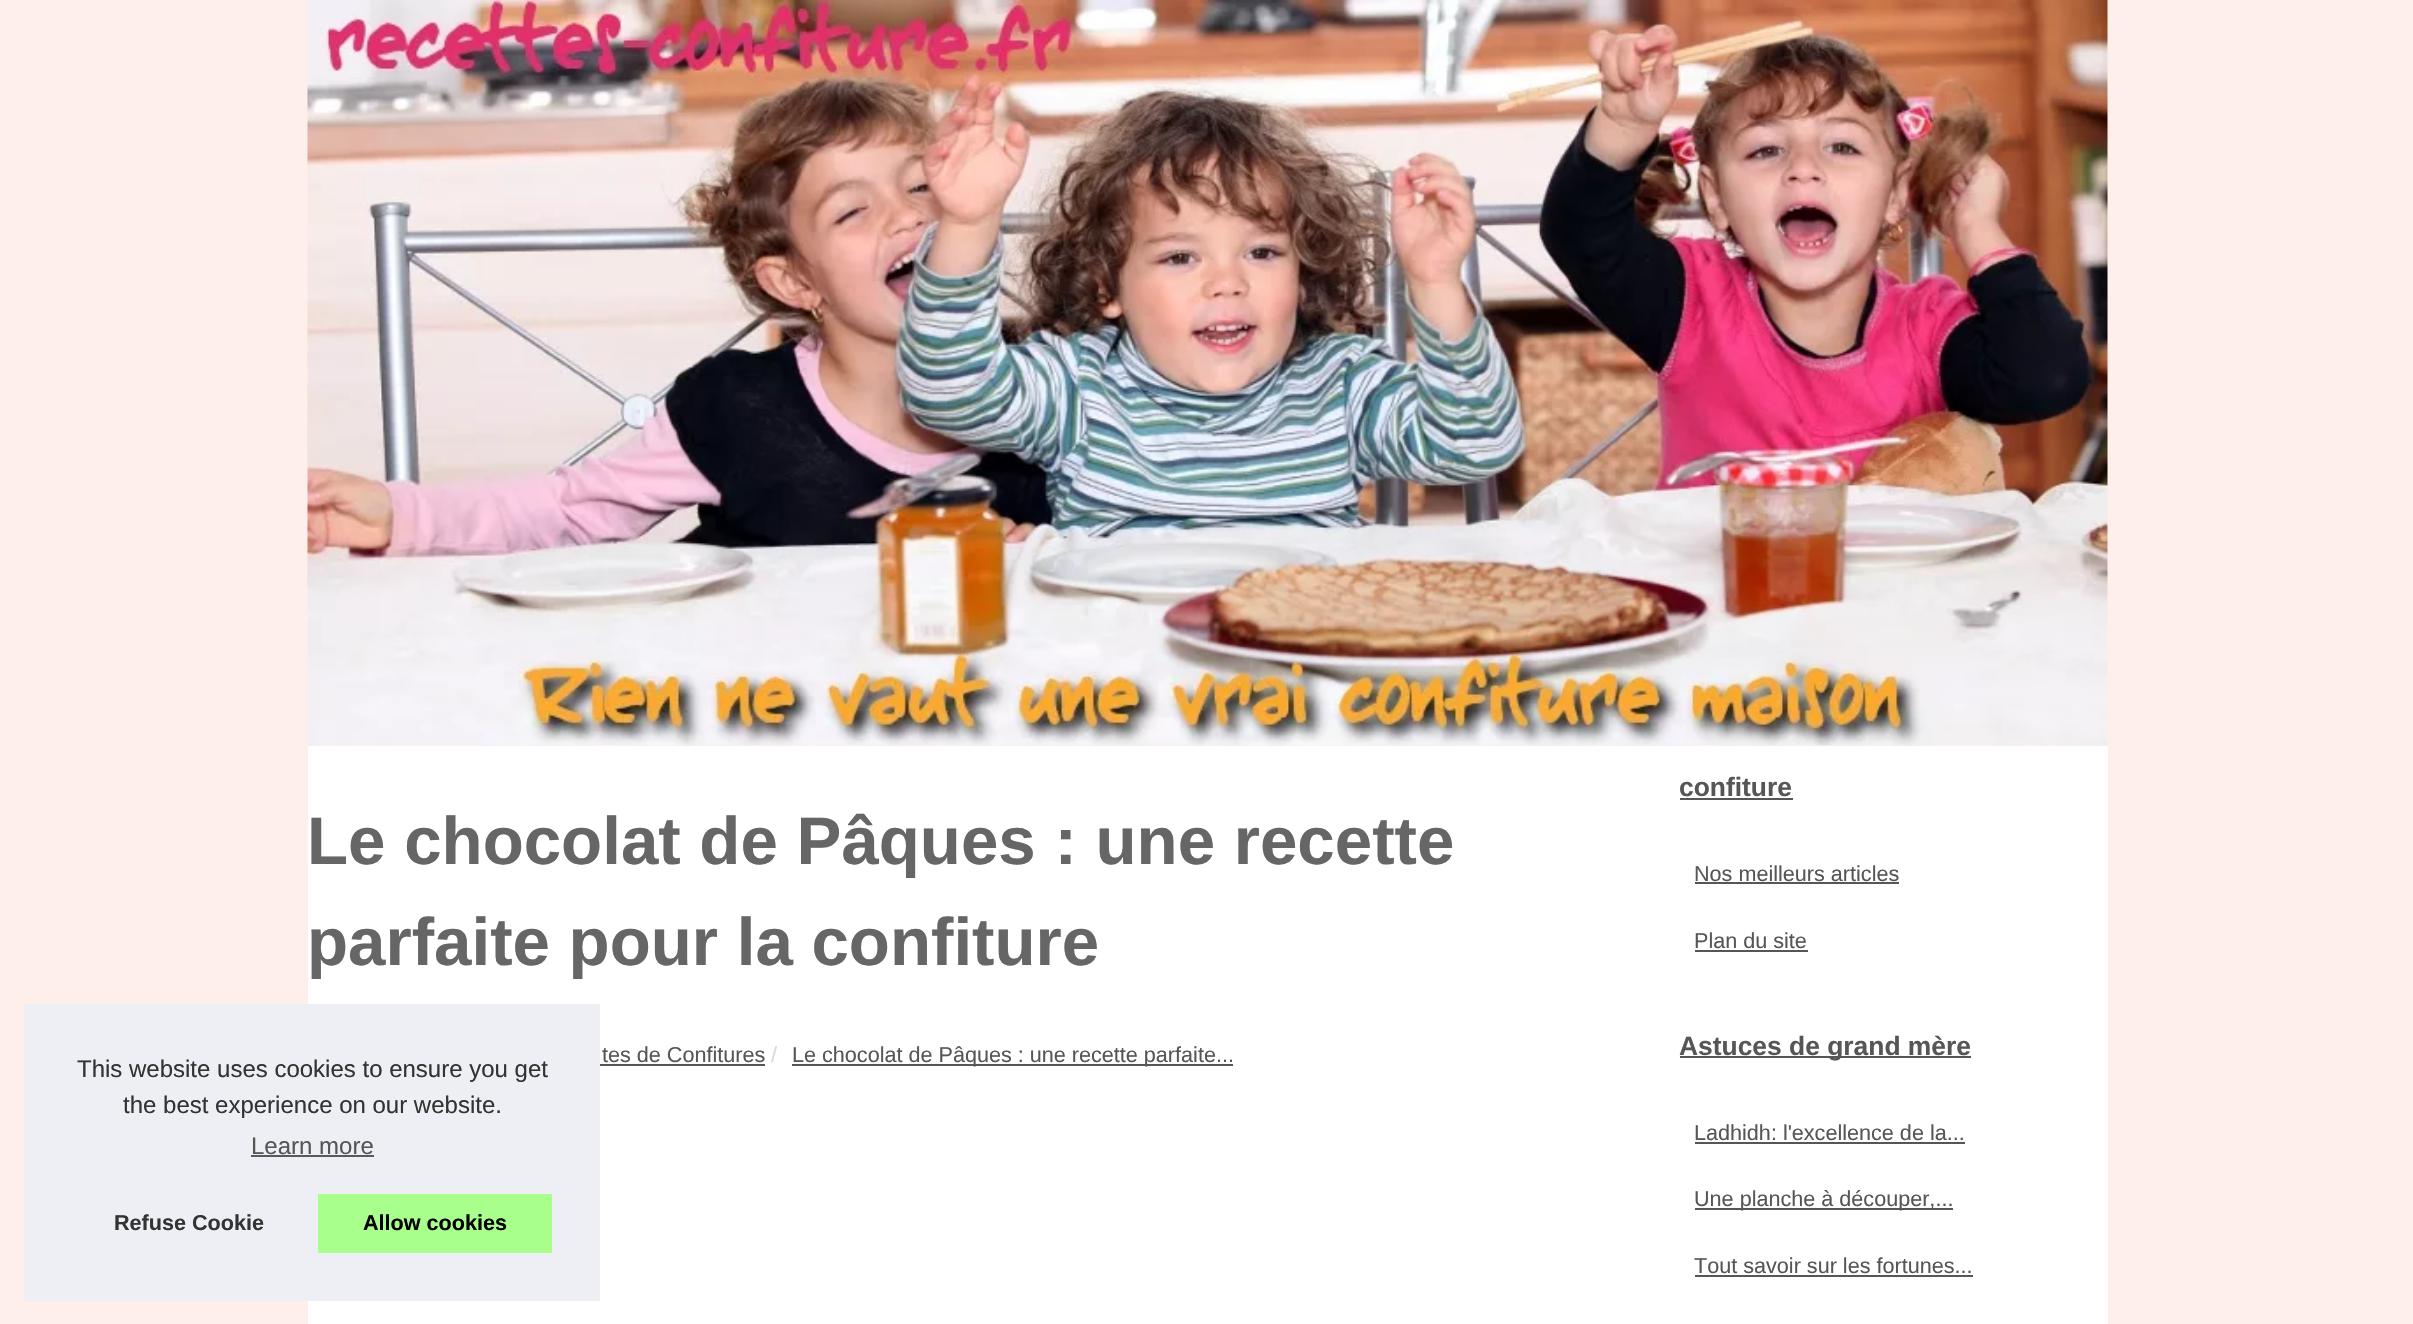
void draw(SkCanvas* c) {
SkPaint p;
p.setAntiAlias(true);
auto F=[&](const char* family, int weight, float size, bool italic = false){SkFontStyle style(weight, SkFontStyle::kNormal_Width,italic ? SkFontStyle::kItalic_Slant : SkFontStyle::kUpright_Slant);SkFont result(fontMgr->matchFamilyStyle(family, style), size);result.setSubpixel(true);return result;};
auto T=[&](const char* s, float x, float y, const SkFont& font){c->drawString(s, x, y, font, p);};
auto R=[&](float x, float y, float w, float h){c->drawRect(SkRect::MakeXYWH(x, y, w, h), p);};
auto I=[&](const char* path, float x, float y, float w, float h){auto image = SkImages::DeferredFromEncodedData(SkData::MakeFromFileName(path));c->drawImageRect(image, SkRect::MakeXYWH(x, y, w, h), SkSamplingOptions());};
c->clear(0xffffefea);
I("1.png",307,0,1801,746);
p.setColor(0xffffffff);
R(308,746,1800,578);
auto f1 = F("Liberation Sans",700,67.25);
p.setColor(0xff666666);
T("Le chocolat de Pâques : une recette",307,864,f1);
T("parfaite pour la confiture",307,965,f1);
auto f2 = F("Liberation Sans",400,21.6);
p.setColor(0xff565656);
T("tes de Confitures",602,1062,f2);
R(600,1064,165,2);
p.setColor(0xffd9d9d9);
T("/",771,1062,f2);
p.setColor(0xff565656);
R(792,1064,441,2);
T("Le chocolat de Pâques : une recette parfaite...",792,1062,f2);
auto f3 = F("Liberation Sans",700,26.4);
T("confiture",1679,796,f3);
R(1680,798,113,2);
T("Nos meilleurs articles",1694,881,f2);
R(1695,882,204,2);
T("Plan du site",1694,948,f2);
R(1695,950,113,2);
R(1680,1056,291,2);
T("Astuces de grand mère",1679,1055,f3);
T("Ladhidh: l'excellence de la...",1694,1140,f2);
R(1695,1142,270,2);
R(1695,1208,258,2);
T("Une planche à découper,...",1694,1206,f2);
T("Tout savoir sur les fortunes...",1694,1273,f2);
R(1695,1275,278,2);
p.setColor(0xffedeff5);
R(24,1004,576,297);
auto f4 = F("Liberation Sans",400,24);
p.setColor(0xff333333);
T("This website uses cookies to ensure you get",77,1077,f4);
T("the best experience on our website.",123,1113,f4);
p.setColor(0xff565656);
T("Learn more",251,1154,f4);
p.setColor(0xff58595a);
R(251,1155,123,2);
auto f5 = F("Liberation Sans",700,21.6);
p.setColor(0xff333333);
T("Refuse Cookie",114,1230,f5);
p.setColor(0xffa8ff8c);
R(318,1194,234,59);
p.setColor(0xff000000);
T("Allow cookies",363,1230,f5);
}
